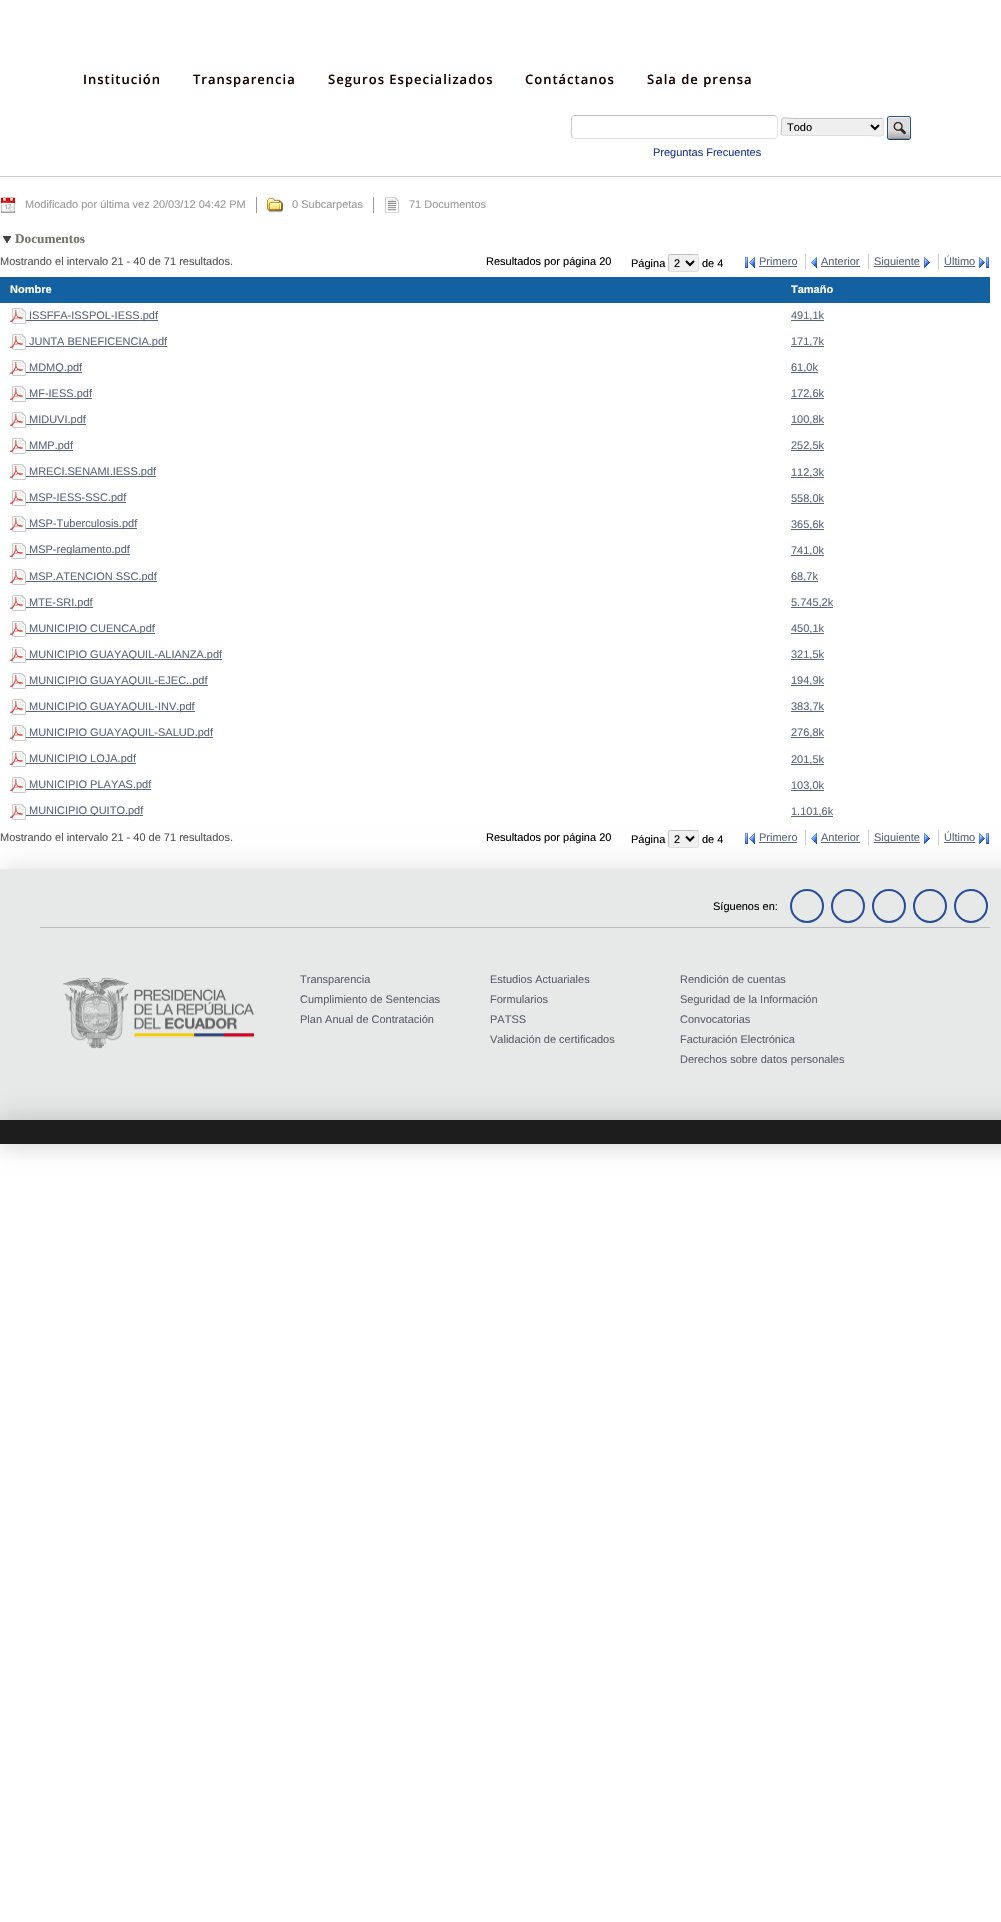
void draw(SkCanvas* c) {
SkPaint p;
p.setAntiAlias(true);
auto F=[&](const char* family, int weight, float size, bool italic = false){SkFontStyle style(weight, SkFontStyle::kNormal_Width,italic ? SkFontStyle::kItalic_Slant : SkFontStyle::kUpright_Slant);SkFont result(fontMgr->matchFamilyStyle(family, style), size);result.setSubpixel(true);return result;};
auto T=[&](const char* s, float x, float y, const SkFont& font){c->drawString(s, x, y, font, p);};
auto L=[&](const char* s, float x, float y, const SkFont& font, const SkPaint& ink, float letter, float word){std::vector<SkGlyphID> glyphs(font.countText(s, strlen(s), SkTextEncoding::kUTF8));std::vector<float> xs(glyphs.size());font.textToGlyphs(s, strlen(s), SkTextEncoding::kUTF8, glyphs);font.getXPos(glyphs, xs, x);float extra = 0;for (size_t i = 0; i < glyphs.size(); i++) {xs[i] += extra;extra += letter + word * (glyphs[i] == font.unicharToGlyph(' '));}c->drawTextBlob(SkTextBlob::MakeFromPosHGlyphs(glyphs, xs, y, font), 0, 0, ink);};
auto R=[&](float x, float y, float w, float h){c->drawRect(SkRect::MakeXYWH(x, y, w, h), p);};
auto Q=[&](float x, float y, float w, float h, float radius){c->drawRoundRect(SkRect::MakeXYWH(x, y, w, h), radius, radius, p);};
auto I=[&](const char* path, float x, float y, float w, float h){auto image = SkImages::DeferredFromEncodedData(SkData::MakeFromFileName(path));c->drawImageRect(image, SkRect::MakeXYWH(x, y, w, h), SkSamplingOptions());};
auto P=[&](const char* data, bool evenOdd = false){SkPath result = *SkParsePath::FromSVGString(data);if (evenOdd) result.setFillType(SkPathFillType::kEvenOdd);return result;};
c->clear(0xffffffff);
auto f1 = F("Open Sans",600,13);
p.setColor(0xff180000);
L("Institución",83,84,f1,p,1,0);
L("Transparencia",193,84,f1,p,1,0);
L("Seguros Especializados",328,84,f1,p,1,0);
L("Contáctanos",525,84,f1,p,1,0);
L("Sala de prensa",647,84,f1,p,1,0);
p.setStroke(true);
p.setStrokeWidth(1);
p.setColor(0xffdedede);
c->drawPath(P("M776.5 116.5c2 2 1 10.5 1 13c0 3 1 8.5-3 9h-200l-2-1"),p);
p.setColor(0xffbfbfbf);
c->drawPath(P("M572.5 137.5c-2-2-1-10.5-1-13c0-3-1-8.5 3-9h200l2 1"),p);
p.setStroke(false);
p.setColor(0xffefefef);
Q(781,118,103,18,2);
p.setStroke(true);
p.setColor(0xffdedede);
c->drawPath(P("M883 119c1.5 1 .5 4 .5 5.5c0 15.5 2 11-18 11h-83l-.5-.5"),p);
p.setColor(0xffbfbfbf);
c->drawPath(P("M782 135c-1.5-1-.5-4-.5-5.5c0-15.5-2-11 18-11h83l.5 .5"),p);
p.setStrokeWidth(2);
p.setColor(0xff000000);
c->drawPath(P("M871 125l4 4l4-4"),p);
auto f2 = F("Liberation Sans",400,11);
p.setStroke(false);
T("Todo",787,131,f2);
I("1.png",887,116,24,24);
p.setColor(0xff1f3895);
T("Preguntas Frecuentes",653,156,f2);
p.setColor(0xffcccccc);
R(0,176,1001,1);
I("2.png",1,197,14,16);
p.setColor(0xff999999);
R(256,197,1,16);
T("Modificado por última vez 20/03/12 04:42 PM",25,208,f2);
I("3.png",267,197,16,16);
R(373,197,1,16);
T("0 Subcarpetas",292,208,f2);
I("4.png",385,197,14,16);
T("71 Documentos",409,208,f2);
I("5.png",3,236,8,7);
auto f3 = F("Liberation Serif",700,13.25);
p.setColor(0xff73736b);
T("Documentos",15,243,f3);
p.setColor(0xff555555);
T("Mostrando el intervalo 21 - 40 de 71 resultados.",0,265,f2);
p.setColor(0xff000000);
T("Resultados por página 20",486,265,f2);
T("Página",631,267,f2);
p.setColor(0xffefefef);
Q(668,254,31,18,2);
c->save();
c->clipRect(SkRect::MakeXYWH(0,254,990,18));
p.setStroke(true);
p.setStrokeWidth(1);
p.setColor(0xffdedede);
c->drawPath(P("M698 255c1 1 .5 6.5 .5 8c0 9 2 8.5-6 8.5h-18c-2 0-4 1-5.5-.5"),p);
p.setColor(0xffbfbfbf);
c->drawPath(P("M669 271c-1-1-.5-6.5-.5-8c0-9-2-8.5 6-8.5h18c2 0 4-1 5.5 .5"),p);
c->restore();
p.setStrokeWidth(2);
p.setColor(0xff000000);
c->drawPath(P("M686 261l4 4l4-4"),p);
p.setStroke(false);
T("2",674,267,f2);
T("de 4",702,267,f2);
I("6.png",745,257,10,11);
p.setColor(0xff5b677d);
T("Primero",759,265,f2);
R(759,266,38,1);
I("7.png",811,257,6,11);
p.setColor(0xffcccccc);
R(805,254,1,15);
p.setColor(0xff5b677d);
T("Anterior",821,265,f2);
R(821,266,39,1);
I("8.png",924,257,6,11);
p.setColor(0xffcccccc);
R(868,254,1,15);
p.setColor(0xff5b677d);
R(874,266,46,1);
T("Siguiente",874,265,f2);
I("9.png",979,257,10,11);
p.setColor(0xffcccccc);
R(938,254,1,15);
p.setColor(0xff5b677d);
T("Último",944,265,f2);
R(944,266,31,1);
p.setColor(0xff1361a0);
R(0,277,990,26);
auto f4 = F("Liberation Sans",700,11);
p.setColor(0xffffffff);
T("Nombre",10,293,f4);
T("Tamaño",791,293,f4);
I("10.png",10,308,16,16);
p.setColor(0xff5b677d);
R(26,320,132,1);
T("ISSFFA-ISSPOL-IESS.pdf",29,319,f2);
R(791,320,33,1);
T("491,1k",791,319,f2);
I("10.png",10,334,16,16);
R(26,346,141,1);
T("JUNTA BENEFICENCIA.pdf",29,345,f2);
R(791,346,33,1);
T("171,7k",791,345,f2);
I("10.png",10,360,16,16);
R(26,372,56,1);
T("MDMQ.pdf",29,371,f2);
R(791,372,27,1);
T("61,0k",791,371,f2);
I("10.png",10,386,16,16);
R(26,398,66,1);
T("MF-IESS.pdf",29,397,f2);
R(791,398,33,1);
T("172,6k",791,397,f2);
I("10.png",10,412,16,16);
R(26,424,60,1);
T("MIDUVI.pdf",29,423,f2);
R(791,424,33,1);
T("100,8k",791,423,f2);
I("10.png",10,438,16,16);
R(26,450,47,1);
T("MMP.pdf",29,449,f2);
R(791,450,33,1);
T("252,5k",791,449,f2);
I("10.png",10,464,16,16);
R(26,476,130,1);
T("MRECI.SENAMI.IESS.pdf",29,475,f2);
R(791,477,33,1);
T("112,3k",791,476,f2);
I("10.png",10,490,16,16);
R(26,502,100,1);
T("MSP-IESS-SSC.pdf",29,501,f2);
R(791,503,33,1);
T("558,0k",791,502,f2);
I("10.png",10,516,16,16);
R(26,528,111,1);
T("MSP-Tuberculosis.pdf",29,527,f2);
R(791,529,33,1);
T("365,6k",791,528,f2);
I("10.png",10,543,16,16);
R(26,554,104,1);
T("MSP-reglamento.pdf",29,553,f2);
R(791,555,33,1);
T("741,0k",791,554,f2);
I("10.png",10,569,16,16);
R(26,581,131,1);
T("MSP.ATENCION SSC.pdf",29,580,f2);
R(791,581,27,1);
T("68,7k",791,580,f2);
I("10.png",10,595,16,16);
R(26,607,67,1);
T("MTE-SRI.pdf",29,606,f2);
R(791,607,42,1);
T("5.745,2k",791,606,f2);
I("10.png",10,621,16,16);
R(26,633,129,1);
T("MUNICIPIO CUENCA.pdf",29,632,f2);
R(791,633,33,1);
T("450,1k",791,632,f2);
I("10.png",10,647,16,16);
R(26,659,196,1);
T("MUNICIPIO GUAYAQUIL-ALIANZA.pdf",29,658,f2);
R(791,659,33,1);
T("321,5k",791,658,f2);
I("10.png",10,673,16,16);
R(26,685,182,1);
T("MUNICIPIO GUAYAQUIL-EJEC..pdf",29,684,f2);
R(791,685,33,1);
T("194,9k",791,684,f2);
I("10.png",10,699,16,16);
R(26,711,169,1);
T("MUNICIPIO GUAYAQUIL-INV.pdf",29,710,f2);
R(791,711,33,1);
T("383,7k",791,710,f2);
I("10.png",10,725,16,16);
R(26,737,187,1);
T("MUNICIPIO GUAYAQUIL-SALUD.pdf",29,736,f2);
R(791,737,33,1);
T("276,8k",791,736,f2);
I("10.png",10,751,16,16);
R(26,763,110,1);
T("MUNICIPIO LOJA.pdf",29,762,f2);
R(791,764,33,1);
T("201,5k",791,763,f2);
I("10.png",10,777,16,16);
R(26,789,125,1);
T("MUNICIPIO PLAYAS.pdf",29,788,f2);
R(791,790,33,1);
T("103,0k",791,789,f2);
I("10.png",10,804,16,16);
R(26,815,117,1);
T("MUNICIPIO QUITO.pdf",29,814,f2);
R(791,816,42,1);
T("1.101,6k",791,815,f2);
p.setColor(0x1f000000);
p.setMaskFilter(SkMaskFilter::MakeBlur(kNormal_SkBlurStyle, 13));
c->drawRect(SkRect::MakeXYWH(0,869,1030,251),p);
p.setMaskFilter(nullptr);
p.setColor(0xff555555);
T("Mostrando el intervalo 21 - 40 de 71 resultados.",0,841,f2);
p.setColor(0xff000000);
T("Resultados por página 20",486,841,f2);
T("Página",631,843,f2);
p.setColor(0xffefefef);
Q(668,830,31,18,2);
c->save();
c->clipRect(SkRect::MakeXYWH(0,830,990,18));
p.setStroke(true);
p.setStrokeWidth(1);
p.setColor(0xffdedede);
c->drawPath(P("M698 831c1 1 .5 6.5 .5 8c0 9 2 8.5-6 8.5h-18c-2 0-4 1-5.5-.5"),p);
p.setColor(0xffbfbfbf);
c->drawPath(P("M669 847c-1-1-.5-6.5-.5-8c0-9-2-8.5 6-8.5h18c2 0 4-1 5.5 .5"),p);
c->restore();
p.setStrokeWidth(2);
p.setColor(0xff000000);
c->drawPath(P("M686 836.5l4 4l4-4"),p);
p.setStroke(false);
T("2",674,843,f2);
T("de 4",702,843,f2);
I("11.png",745,833,10,11);
p.setColor(0xff5b677d);
T("Primero",759,841,f2);
R(759,842,38,1);
I("12.png",811,833,6,11);
p.setColor(0xffcccccc);
R(805,830,1,15);
p.setColor(0xff5b677d);
T("Anterior",821,841,f2);
R(821,842,39,1);
I("13.png",924,833,6,11);
p.setColor(0xffcccccc);
R(868,830,1,15);
p.setColor(0xff5b677d);
R(874,842,46,1);
T("Siguiente",874,841,f2);
I("14.png",979,833,10,11);
p.setColor(0xffcccccc);
R(938,830,1,15);
p.setColor(0xff5b677d);
T("Último",944,841,f2);
R(944,842,31,1);
p.setColor(0xffe7e8e8);
R(0,869,1001,251);
p.setColor(0xffbcbcbc);
R(40,927,950,1);
p.setColor(0xff000000);
T("Síguenos en:",713,910,f2);
p.setStroke(true);
p.setColor(0xff274d9a);
c->drawCircle(807,906,16,p);
c->drawCircle(848,906,16,p);
c->drawCircle(889,906,16,p);
c->drawCircle(930,906,16,p);
c->drawCircle(971,906,16,p);
I("15.png",63,978,191,71);
p.setStroke(false);
p.setColor(0xff5b616c);
T("Transparencia",300,983,f2);
T("Cumplimiento de Sentencias",300,1003,f2);
T("Plan Anual de Contratación",300,1023,f2);
T("Estudios Actuariales",490,983,f2);
T("Formularios",490,1003,f2);
T("PATSS",490,1023,f2);
T("Validación de certificados",490,1043,f2);
T("Rendición de cuentas",680,983,f2);
T("Seguridad de la Información",680,1003,f2);
T("Convocatorias",680,1023,f2);
T("Facturación Electrónica",680,1043,f2);
T("Derechos sobre datos personales",680,1063,f2);
p.setColor(0x33000000);
p.setMaskFilter(SkMaskFilter::MakeBlur(kNormal_SkBlurStyle, 13));
c->drawRect(SkRect::MakeXYWH(0,1120,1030,24),p);
p.setMaskFilter(nullptr);
p.setColor(0xff1e1d1e);
R(0,1120,1001,24);
}
